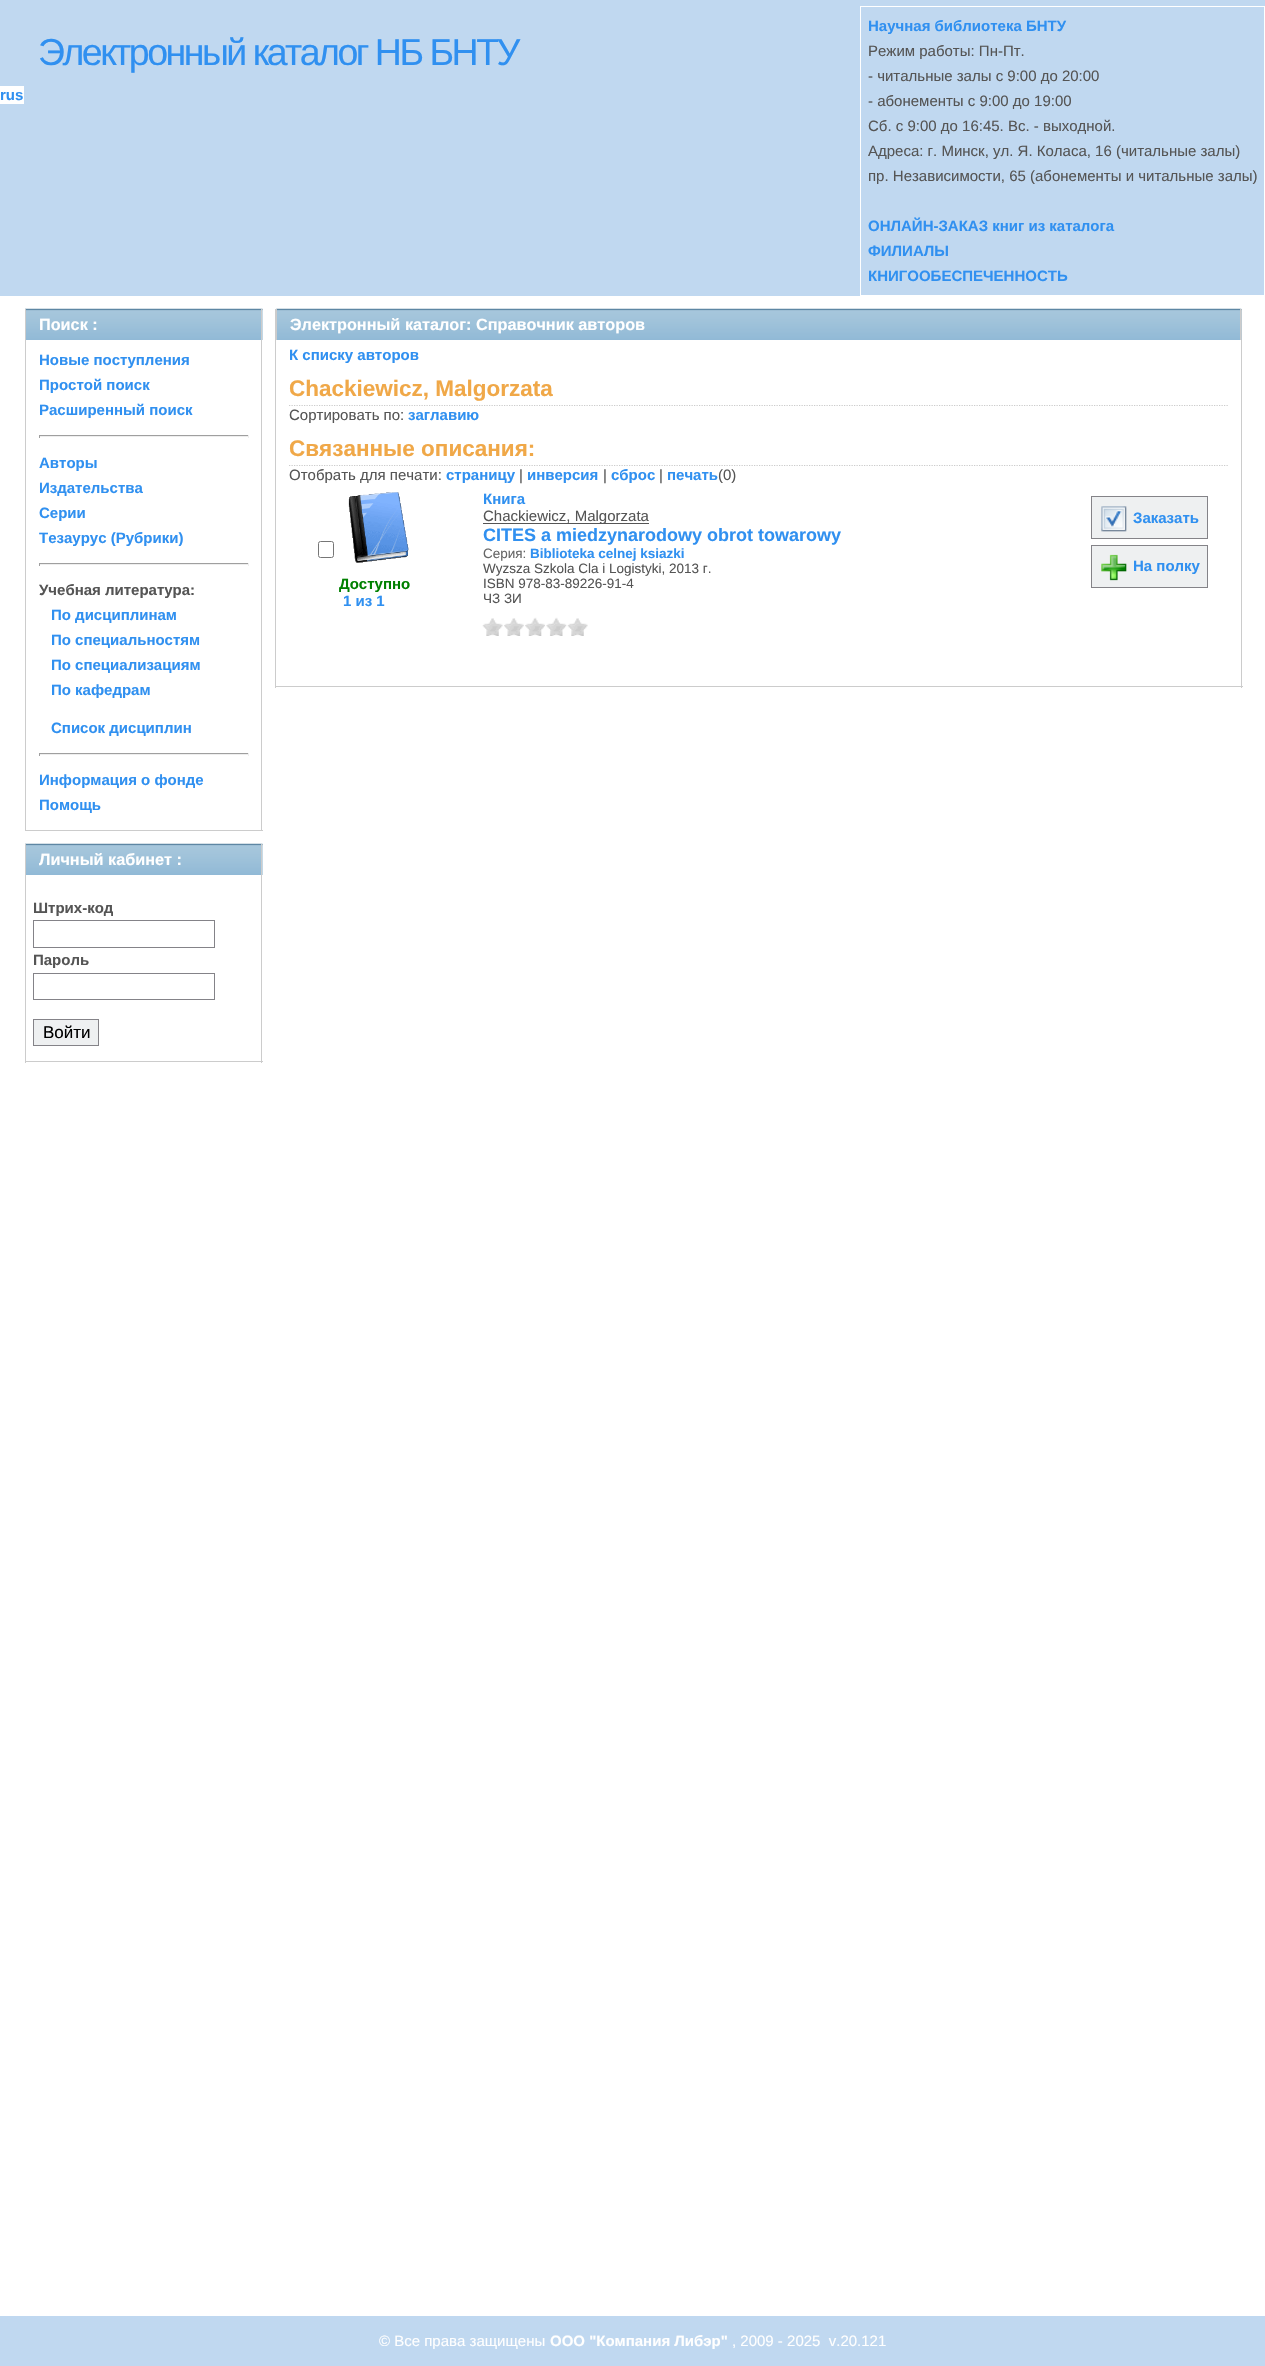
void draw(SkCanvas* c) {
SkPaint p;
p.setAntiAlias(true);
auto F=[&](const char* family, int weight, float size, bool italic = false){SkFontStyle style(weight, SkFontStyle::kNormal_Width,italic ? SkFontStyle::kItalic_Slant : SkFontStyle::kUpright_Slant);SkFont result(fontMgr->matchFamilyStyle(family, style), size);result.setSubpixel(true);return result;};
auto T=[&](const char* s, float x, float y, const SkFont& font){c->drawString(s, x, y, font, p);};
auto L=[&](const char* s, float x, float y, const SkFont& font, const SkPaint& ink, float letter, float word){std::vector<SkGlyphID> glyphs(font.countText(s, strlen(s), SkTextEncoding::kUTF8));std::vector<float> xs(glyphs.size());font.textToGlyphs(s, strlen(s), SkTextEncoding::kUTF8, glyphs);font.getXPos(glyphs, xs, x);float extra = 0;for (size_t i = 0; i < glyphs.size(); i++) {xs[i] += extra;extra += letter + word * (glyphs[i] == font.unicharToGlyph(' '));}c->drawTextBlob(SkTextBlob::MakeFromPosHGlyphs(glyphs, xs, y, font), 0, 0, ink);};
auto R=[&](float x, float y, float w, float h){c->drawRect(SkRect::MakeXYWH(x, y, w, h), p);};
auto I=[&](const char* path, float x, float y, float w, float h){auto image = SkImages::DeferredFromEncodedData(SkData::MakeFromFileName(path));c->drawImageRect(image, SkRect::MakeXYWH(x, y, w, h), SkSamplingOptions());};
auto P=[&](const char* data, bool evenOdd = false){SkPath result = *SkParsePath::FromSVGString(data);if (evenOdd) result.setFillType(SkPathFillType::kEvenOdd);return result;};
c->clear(0xffffffff);
p.setColor(0xffc0d8f0);
R(0,0,1265,296);
auto f1 = F("Liberation Sans",400,37.5);
p.setColor(0xff3090f0);
L("Электронный каталог НБ БНТУ",38,65,f1,p,-2.5,0);
p.setColor(0xffffffff);
R(0,86,24,18);
auto f2 = F("Liberation Sans",700,15);
p.setColor(0xff3090f0);
T("rus",0,100,f2);
p.setStroke(true);
p.setStrokeWidth(1);
p.setColor(0xffffffff);
c->drawRect(SkRect::MakeXYWH(860.5,6.5,404,289),p);
p.setStroke(false);
p.setColor(0xff3090f0);
T("Научная библиотека БНТУ",868,31,f2);
auto f3 = F("Liberation Sans",400,15);
p.setColor(0xff555555);
T("Режим работы: Пн-Пт.",868,56,f3);
T("- читальные залы с 9:00 до 20:00",868,81,f3);
T("- абонементы с 9:00 до 19:00",868,106,f3);
T("Сб. с 9:00 до 16:45. Вс. - выходной.",868,131,f3);
T("Адреса: г. Минск, ул. Я. Коласа, 16 (читальные залы)",868,156,f3);
T("пр. Независимости, 65 (абонементы и читальные залы)",868,181,f3);
p.setColor(0xff3090f0);
T("ОНЛАЙН-ЗАКАЗ книг из каталога",868,231,f2);
T("ФИЛИАЛЫ",868,256,f2);
T("КНИГООБЕСПЕЧЕННОСТЬ",868,281,f2);
p.setColor(0xffeef0f1);
R(262,309,1,31);
I("1.png",25,308,238,32);
p.setColor(0xffcccccc);
R(261,309,1,522);
R(25,309,1,31);
auto f4 = F("Liberation Sans",700,16.25);
p.setColor(0xffffffff);
T("Поиск :",39,330,f4);
p.setColor(0xffcccccc);
R(25,830,238,1);
R(25,340,1,491);
p.setColor(0xff3090f0);
T("Новые поступления",39,365,f2);
T("Простой поиск",39,390,f2);
T("Расширенный поиск",39,415,f2);
p.setColor(0xff9f9f9f);
R(39,435,210,1);
p.setColor(0xffeeeeee);
R(248,435,1,3);
R(39,436,210,1);
p.setColor(0xff9f9f9f);
R(39,435,1,3);
p.setColor(0xff3090f0);
T("Авторы",39,468,f2);
T("Издательства",39,493,f2);
T("Серии",39,518,f2);
T("Тезаурус (Рубрики)",39,543,f2);
p.setColor(0xff9f9f9f);
R(39,563,210,1);
p.setColor(0xffeeeeee);
R(248,563,1,3);
R(39,564,210,1);
p.setColor(0xff9f9f9f);
R(39,563,1,3);
p.setColor(0xff555555);
T("Учебная литература:",39,595,f2);
p.setColor(0xff3090f0);
T("По дисциплинам",51,620,f2);
T("По специальностям",51,645,f2);
T("По специализациям",51,670,f2);
T("По кафедрам",51,695,f2);
T("Список дисциплин",51,733,f2);
p.setColor(0xff9f9f9f);
R(39,753,210,1);
p.setColor(0xffeeeeee);
R(248,753,1,3);
R(39,754,210,1);
p.setColor(0xff9f9f9f);
R(39,753,1,3);
p.setColor(0xff3090f0);
T("Информация о фонде",39,785,f2);
T("Помощь",39,810,f2);
p.setColor(0xffeef0f1);
R(262,844,1,31);
I("1.png",25,843,238,32);
p.setColor(0xffcccccc);
R(261,844,1,219);
R(25,844,1,31);
p.setColor(0xffffffff);
T("Личный кабинет :",39,865,f4);
p.setColor(0xffcccccc);
R(25,1061,238,1);
R(25,875,1,188);
p.setColor(0xff555555);
T("Штрих-код",33,913,f2);
p.setStroke(true);
p.setColor(0xff848388);
c->drawRect(SkRect::MakeXYWH(33.5,920.5,181,27),p);
p.setStroke(false);
p.setColor(0xff555555);
T("Пароль",33,965,f2);
p.setStroke(true);
p.setColor(0xff848388);
c->drawRect(SkRect::MakeXYWH(33.5,973.5,181,26),p);
p.setStroke(false);
p.setColor(0xffeef0f1);
c->drawRect(SkRect::MakeXYWH(33.5,1019.5,65,26),p);
p.setStroke(true);
p.setColor(0xff848388);
c->drawRect(SkRect::MakeXYWH(33.5,1019.5,65,26),p);
auto f5 = F("Liberation Sans",400,17);
p.setStroke(false);
p.setColor(0xff000000);
T("Войти",43,1038,f5);
p.setColor(0xffcccccc);
R(1241,309,1,379);
R(275,686,968,1);
R(275,309,1,379);
I("2.png",276,308,966,32);
R(1240,309,1,31);
R(276,309,1,31);
p.setColor(0xffffffff);
T("Электронный каталог: Справочник авторов",290,330,f4);
p.setColor(0xff3090f0);
T("К списку авторов",289,360,f2);
p.setStroke(true);
p.setStrokeWidth(1.2);
p.setColor(0xffcccccc);
p.setPathEffect(SkDashPathEffect::Make({{1.25f,1.25f}}, 0));
c->drawPath(P("M289 405.5h940"),p);
p.setPathEffect(nullptr);
auto f6 = F("Liberation Sans",700,22.5);
p.setStroke(false);
p.setColor(0xfff0a848);
T("Chackiewicz, Malgorzata",289,396,f6);
p.setColor(0xff555555);
T("Сортировать по:",289,420,f3);
p.setColor(0xff3090f0);
T("заглавию",408,420,f2);
p.setStroke(true);
p.setColor(0xffcccccc);
p.setPathEffect(SkDashPathEffect::Make({{1.25f,1.25f}}, 0));
c->drawPath(P("M289 465.5h940"),p);
p.setPathEffect(nullptr);
p.setStroke(false);
p.setColor(0xfff0a848);
T("Связанные описания:",289,456,f6);
p.setColor(0xff555555);
T("Отобрать для печати:",289,480,f3);
p.setColor(0xff3090f0);
T("страницу",446,480,f2);
p.setColor(0xff555555);
T("|",519,480,f3);
p.setColor(0xff3090f0);
T("инверсия",527,480,f2);
p.setColor(0xff555555);
T("|",603,480,f3);
p.setColor(0xff3090f0);
T("сброс",611,480,f2);
p.setColor(0xff555555);
T("|",659,480,f3);
p.setColor(0xff3090f0);
T("печать",667,480,f2);
p.setColor(0xff555555);
T("(0)",718,480,f3);
p.setColor(0xff3090f0);
T("Книга",483,504,f2);
p.setColor(0xff555555);
R(483,523,166,1);
T("Chackiewicz, Malgorzata",483,521,f3);
auto f7 = F("Liberation Sans",700,18);
p.setColor(0xff3090f0);
T("CITES a miedzynarodowy obrot towarowy",483,541,f7);
auto f8 = F("Liberation Sans",400,13.5);
p.setColor(0xff666666);
T("Серия:",483,558,f8);
auto f9 = F("Liberation Sans",700,13.5);
p.setColor(0xff3090f0);
T("Biblioteka celnej ksiazki",530,558,f9);
p.setColor(0xff555555);
T("Wyzsza Szkola Cla i Logistyki, 2013 г.",483,573,f8);
T("ISBN 978-83-89226-91-4",483,588,f8);
T("ЧЗ ЗИ",483,603,f8);
I("3.png",482,618,21,18);
I("4.png",504,618,20,18);
I("5.png",525,617,20,19);
I("6.png",546,617,21,19);
I("7.png",567,618,21,18);
p.setColor(0xffeef0f1);
c->drawRect(SkRect::MakeXYWH(1091.5,496.5,116,42),p);
p.setStroke(true);
p.setStrokeWidth(1);
p.setColor(0xff848388);
c->drawRect(SkRect::MakeXYWH(1091.5,496.5,116,42),p);
I("8.png",1101,506,26,26);
p.setStroke(false);
p.setColor(0xff3090f0);
T("Заказать",1133,523,f2);
p.setColor(0xffeef0f1);
c->drawRect(SkRect::MakeXYWH(1091.5,545.5,116,42),p);
p.setStroke(true);
p.setColor(0xff848388);
c->drawRect(SkRect::MakeXYWH(1091.5,545.5,116,42),p);
I("9.png",1101,554,26,27);
p.setStroke(false);
p.setColor(0xff3090f0);
T("На полку",1133,571,f2);
p.setStroke(true);
p.setColor(0xff767676);
c->drawRoundRect(SkRect::MakeXYWH(318.5,541.5,15,16),2,2,p);
I("10.png",348,492,61,71);
p.setStroke(false);
p.setColor(0xff008000);
T("Доступно",339,589,f2);
p.setColor(0xff3090f0);
T("1 из 1",343,606,f2);
p.setColor(0xffc0d8f0);
R(0,2316,1265,50);
p.setColor(0xffffffff);
T("© Все права защищены",379,2346,f3);
T("ООО \"Компания Либэр\"",550,2346,f2);
T(", 2009 - 2025  v.20.121",732,2346,f3);
}
